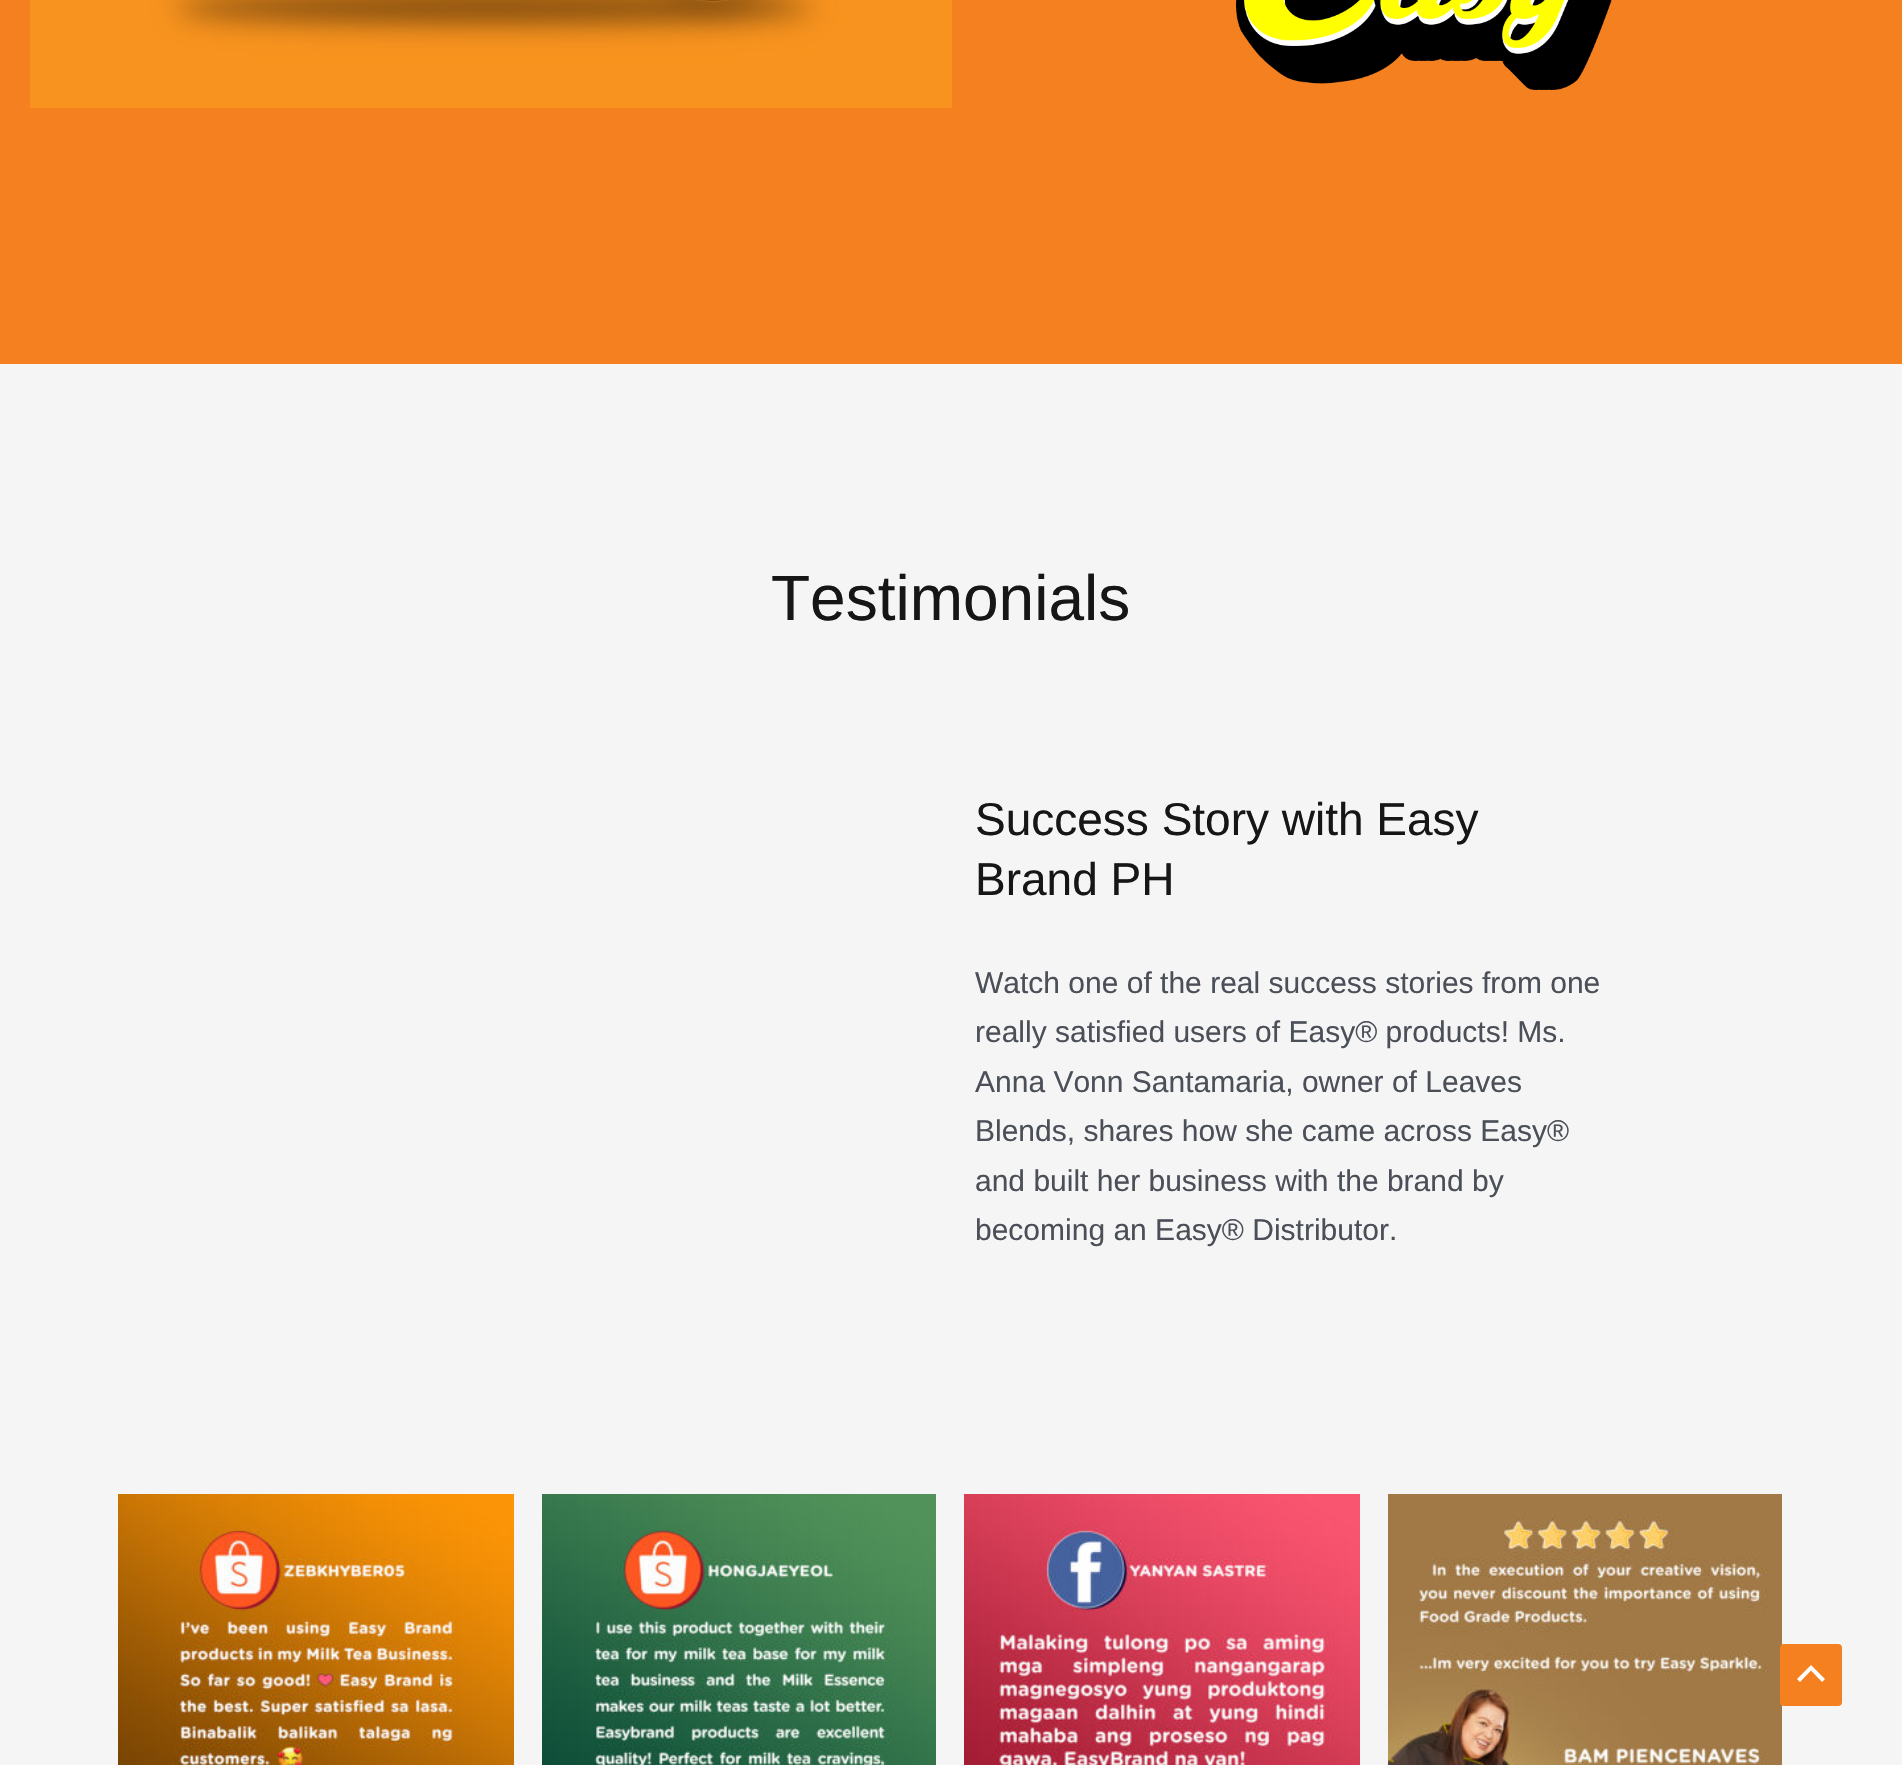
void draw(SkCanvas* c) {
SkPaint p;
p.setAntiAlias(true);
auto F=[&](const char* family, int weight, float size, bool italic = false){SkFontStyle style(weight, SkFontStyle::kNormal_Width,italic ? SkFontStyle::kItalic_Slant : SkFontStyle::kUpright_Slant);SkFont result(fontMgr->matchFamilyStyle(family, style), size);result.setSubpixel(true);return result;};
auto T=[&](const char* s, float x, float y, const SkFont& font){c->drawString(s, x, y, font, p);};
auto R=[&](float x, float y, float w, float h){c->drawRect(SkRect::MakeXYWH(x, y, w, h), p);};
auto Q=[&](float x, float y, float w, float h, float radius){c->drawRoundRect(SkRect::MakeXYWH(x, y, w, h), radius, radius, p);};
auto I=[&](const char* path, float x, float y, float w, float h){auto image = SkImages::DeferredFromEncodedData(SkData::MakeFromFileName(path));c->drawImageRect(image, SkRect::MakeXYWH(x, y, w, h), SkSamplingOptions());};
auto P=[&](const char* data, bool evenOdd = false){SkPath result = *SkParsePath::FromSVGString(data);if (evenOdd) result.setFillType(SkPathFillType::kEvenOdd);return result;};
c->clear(0xfff5f5f5);
p.setColor(0xfff48020);
R(0,0,1902,364);
I("1.png",30,0,922,108);
I("2.png",1236,0,376,90);
auto f1 = F("Liberation Sans",400,64);
p.setColor(0xff161616);
T("Testimonials",771,620,f1);
auto f2 = F("Liberation Sans",400,46);
T("Success Story with Easy",975,835,f2);
T("Brand PH",975,895,f2);
auto f3 = F("Liberation Sans",400,30);
p.setColor(0xff4b4f58);
T("Watch one of the real success stories from one",975,993,f3);
T("really satisfied users of Easy® products! Ms.",975,1042,f3);
T("Anna Vonn Santamaria, owner of Leaves",975,1092,f3);
T("Blends, shares how she came across Easy®",975,1141,f3);
T("and built her business with the brand by",975,1191,f3);
T("becoming an Easy® Distributor.",975,1240,f3);
I("3.png",118,1494,396,271);
I("4.png",542,1494,394,271);
I("5.png",964,1494,396,271);
I("6.png",1388,1494,394,271);
p.setColor(0xfff48020);
Q(1780,1644,62,62,4);
p.setColor(0xffffffff);
c->drawPath(P("M1825 1679l-14-14l-14 14l3 3l11-11.5l11 11.5z"),p);
}
